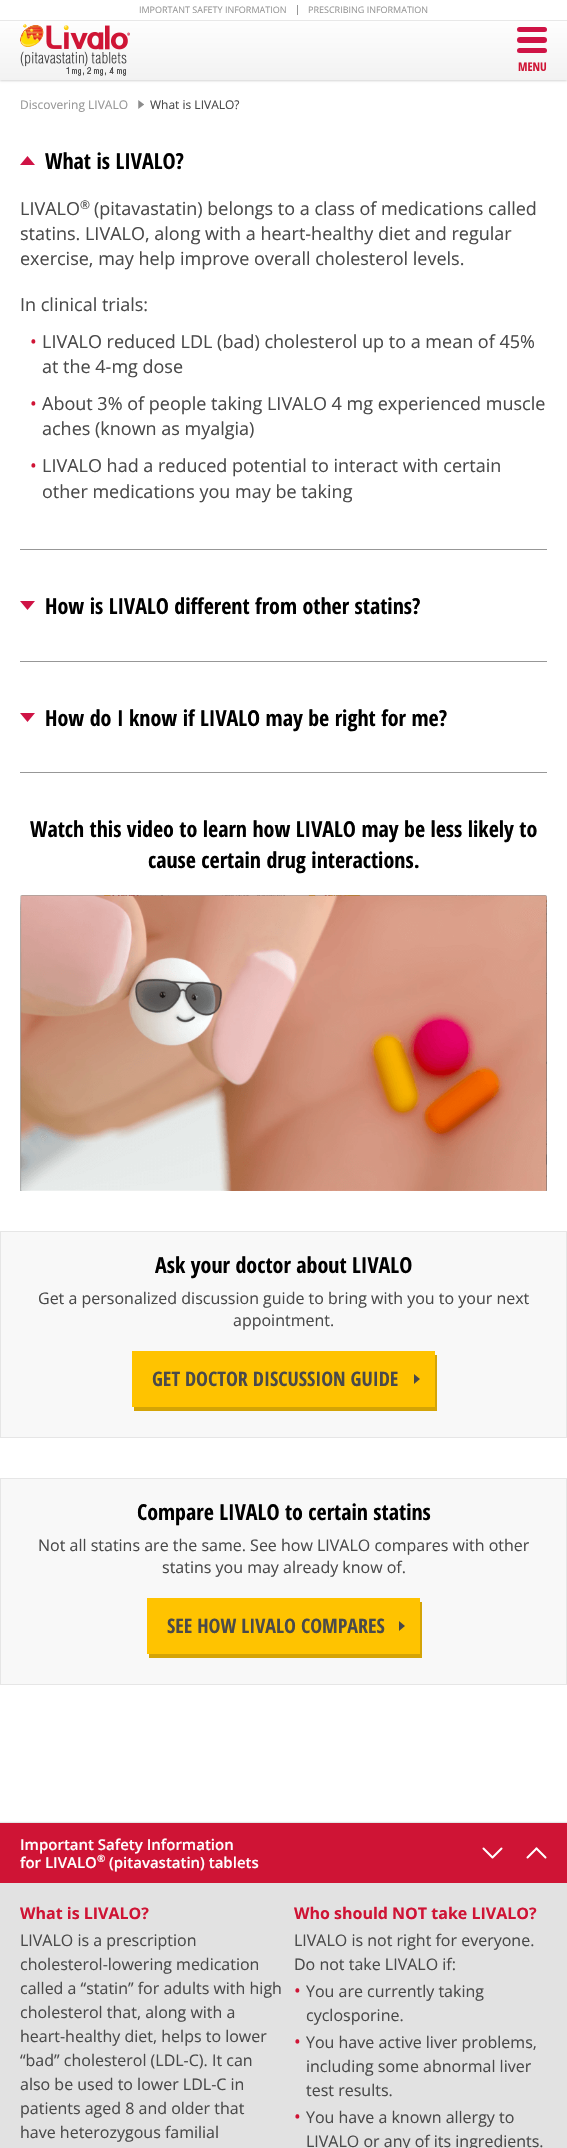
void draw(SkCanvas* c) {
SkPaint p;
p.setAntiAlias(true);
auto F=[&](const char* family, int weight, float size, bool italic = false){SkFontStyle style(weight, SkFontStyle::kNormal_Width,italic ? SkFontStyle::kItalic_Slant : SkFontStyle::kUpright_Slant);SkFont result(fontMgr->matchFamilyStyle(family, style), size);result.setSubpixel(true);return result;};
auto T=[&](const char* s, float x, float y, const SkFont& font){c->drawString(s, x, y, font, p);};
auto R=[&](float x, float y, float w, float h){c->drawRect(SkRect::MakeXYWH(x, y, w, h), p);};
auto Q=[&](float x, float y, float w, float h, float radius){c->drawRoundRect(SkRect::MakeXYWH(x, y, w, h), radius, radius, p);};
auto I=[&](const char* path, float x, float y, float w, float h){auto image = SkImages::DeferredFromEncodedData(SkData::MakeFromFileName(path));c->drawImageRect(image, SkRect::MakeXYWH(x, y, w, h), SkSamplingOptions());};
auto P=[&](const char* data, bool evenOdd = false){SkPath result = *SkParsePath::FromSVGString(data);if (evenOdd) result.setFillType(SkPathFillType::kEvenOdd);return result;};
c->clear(0xffffffff);
p.setColor(0xffd5d5d5);
p.setMaskFilter(SkMaskFilter::MakeBlur(kNormal_SkBlurStyle, 1));
c->drawRect(SkRect::MakeXYWH(0,21,567,60),p);
p.setMaskFilter(nullptr);
{
const SkColor colors[] = {0xfffefefe,0xfff2f2f2};
const float stops[] = {0,1};
const SkPoint ends[] = {{284,20}, {284,80}};
p.setShader(SkGradientShader::MakeLinear(ends, colors, stops, 2, SkTileMode::kClamp));
p.setAlpha(255);
}
R(0,20,567,60);
p.setShader(nullptr);
p.setColor(0x80000000);
p.setMaskFilter(SkMaskFilter::MakeBlur(kNormal_SkBlurStyle, .5));
c->drawRect(SkRect::MakeXYWH(0,0,567,20),p);
p.setMaskFilter(nullptr);
p.setColor(0xffffffff);
R(0,0,567,20);
p.setColor(0xff979797);
R(297,5,1,10);
auto f1 = F("Open Sans",400,9);
T("IMPORTANT SAFETY INFORMATION",139,13,f1);
T("PRESCRIBING INFORMATION",308,13,f1);
I("1.png",20,24,110,52);
p.setColor(0xffcf1345);
Q(517,27,30,5,2.5);
Q(517,37,30,6,3);
Q(517,48,30,5,2.5);
auto f2 = F("Open Sans Condensed",700,12);
p.setColor(0xffcf1435);
T("MENU",518,71,f2);
auto f3 = F("Open Sans",400,12);
p.setColor(0xff979797);
T("Discovering LIVALO",20,109,f3);
I("2.png",138,100,6,9);
p.setColor(0xff4a4a4a);
T("What is LIVALO?",150,109,f3);
p.setColor(0xff979797);
R(20,549,527,1);
I("3.png",20,156,15,9);
auto f4 = F("Open Sans Condensed",700,22);
p.setColor(0xff000000);
T("What is LIVALO?",45,169,f4);
auto f5 = F("Open Sans",400,18);
p.setColor(0xff4a4a4a);
T("LIVALO",20,215,f5);
T("®",80,209,f3);
T("(pitavastatin) belongs to a class of medications called",94,215,f5);
T("statins. LIVALO, along with a heart-healthy diet and regular",20,240,f5);
T("exercise, may help improve overall cholesterol levels.",20,265,f5);
T("In clinical trials:",20,311,f5);
p.setColor(0xffcf1435);
T("•",30,348,f5);
p.setColor(0xff4a4a4a);
T("LIVALO reduced LDL (bad) cholesterol up to a mean of 45%",42,348,f5);
T("at the 4-mg dose",42,373,f5);
p.setColor(0xffcf1435);
T("•",30,410,f5);
p.setColor(0xff4a4a4a);
T("About 3% of people taking LIVALO 4 mg experienced muscle",42,410,f5);
T("aches (known as myalgia)",42,435,f5);
p.setColor(0xffcf1435);
T("•",30,472,f5);
p.setColor(0xff4a4a4a);
T("LIVALO had a reduced potential to interact with certain",42,472,f5);
T("other medications you may be taking",42,498,f5);
p.setColor(0xff979797);
R(20,661,527,1);
I("4.png",20,601,15,9);
p.setColor(0xff000000);
T("How is LIVALO different from other statins?",45,614,f4);
p.setColor(0xff979797);
R(20,772,527,1);
I("4.png",20,713,15,9);
p.setColor(0xff000000);
T("How do I know if LIVALO may be right for me?",45,726,f4);
T("Watch this video to learn how LIVALO may be less likely to",30,837,f4);
T("cause certain drug interactions.",148,868,f4);
I("5.png",20,895,527,296);
p.setColor(0xfff8f8f8);
c->drawRect(SkRect::MakeXYWH(.5,1231.5,566,206),p);
p.setStroke(true);
p.setStrokeWidth(1);
p.setColor(0xffe6e6e6);
c->drawRect(SkRect::MakeXYWH(.5,1231.5,566,206),p);
p.setStroke(false);
p.setColor(0xff000000);
T("Ask your doctor about LIVALO",155,1273,f4);
auto f6 = F("Open Sans",400,16);
p.setColor(0xff4a4a4a);
T("Get a personalized discussion guide to bring with you to your next",38,1304,f6);
T("appointment.",233,1326,f6);
p.setColor(0xffd4a406);
c->drawPath(P("M134 1407v4h303v-56h-2v52z"),p);
p.setColor(0xffffc300);
R(132,1351,303,56);
auto f7 = F("Open Sans Condensed",700,20);
p.setColor(0xff4a4a4a);
T("GET DOCTOR DISCUSSION GUIDE",152,1386,f7);
I("6.png",414,1374,6,10);
p.setColor(0xfff8f8f8);
c->drawRect(SkRect::MakeXYWH(.5,1478.5,566,206),p);
p.setStroke(true);
p.setColor(0xffe6e6e6);
c->drawRect(SkRect::MakeXYWH(.5,1478.5,566,206),p);
p.setStroke(false);
p.setColor(0xff000000);
T("Compare LIVALO to certain statins",137,1520,f4);
p.setColor(0xff4a4a4a);
T("Not all statins are the same. See how LIVALO compares with other",38,1551,f6);
T("statins you may already know of.",162,1573,f6);
p.setColor(0xffd4a406);
c->drawPath(P("M149 1654v4h273v-56h-2v52z"),p);
p.setColor(0xffffc300);
R(147,1598,273,56);
p.setColor(0xff4a4a4a);
T("SEE HOW LIVALO COMPARES",167,1633,f7);
I("6.png",399,1621,6,10);
p.setColor(0xffe6e6e6);
p.setMaskFilter(SkMaskFilter::MakeBlur(kNormal_SkBlurStyle, .5));
c->drawRect(SkRect::MakeXYWH(0,1822,567,325),p);
p.setMaskFilter(nullptr);
p.setColor(0xffcf1435);
R(0,1823,567,60);
auto f8 = F("Open Sans",600,15);
p.setColor(0xffffffff);
T("Important Safety Information",20,1850,f8);
T("for LIVALO",20,1868,f8);
auto f9 = F("Open Sans",600,10);
T("®",97,1862,f9);
T("(pitavastatin) tablets",109,1868,f8);
p.setStroke(true);
p.setStrokeWidth(2);
p.setStrokeCap(SkPaint::kRound_Cap);
c->drawPath(P("M492.5 1857.5l9-9m-18 0l9 9m44-9l-9 9"),p);
c->drawPath(P("M545.5 1857.5l-9-9"),p);
p.setStroke(false);
p.setColor(0xffe2e2e2);
R(0,1883,567,265);
auto f10 = F("Open Sans",700,16);
p.setColor(0xffcf1435);
T("What is LIVALO?",20,1919,f10);
p.setColor(0xff4a4a4a);
T("LIVALO is a prescription",20,1946,f6);
T("cholesterol-lowering medication",20,1970,f6);
T("called a “statin” for adults with high",20,1994,f6);
T("cholesterol that, along with a",20,2018,f6);
T("heart-healthy diet, helps to lower",20,2042,f6);
T("“bad” cholesterol (LDL-C). It can",20,2066,f6);
T("also be used to lower LDL-C in",20,2090,f6);
T("patients aged 8 and older that",20,2114,f6);
T("have heterozygous familial",20,2138,f6);
p.setColor(0xffcf1435);
T("Who should NOT take LIVALO?",294,1919,f10);
p.setColor(0xff4a4a4a);
T("LIVALO is not right for everyone.",294,1946,f6);
T("Do not take LIVALO if:",294,1970,f6);
p.setColor(0xffcf1435);
T("•",294,1997,f5);
p.setColor(0xff4a4a4a);
T("You are currently taking",306,1997,f6);
T("cyclosporine.",306,2021,f6);
p.setColor(0xffcf1435);
T("•",294,2048,f5);
p.setColor(0xff4a4a4a);
T("You have active liver problems,",306,2048,f6);
T("including some abnormal liver",306,2072,f6);
T("test results.",306,2096,f6);
p.setColor(0xffcf1435);
T("•",294,2123,f5);
p.setColor(0xff4a4a4a);
T("You have a known allergy to",306,2123,f6);
T("LIVALO or any of its ingredients.",306,2147,f6);
}
